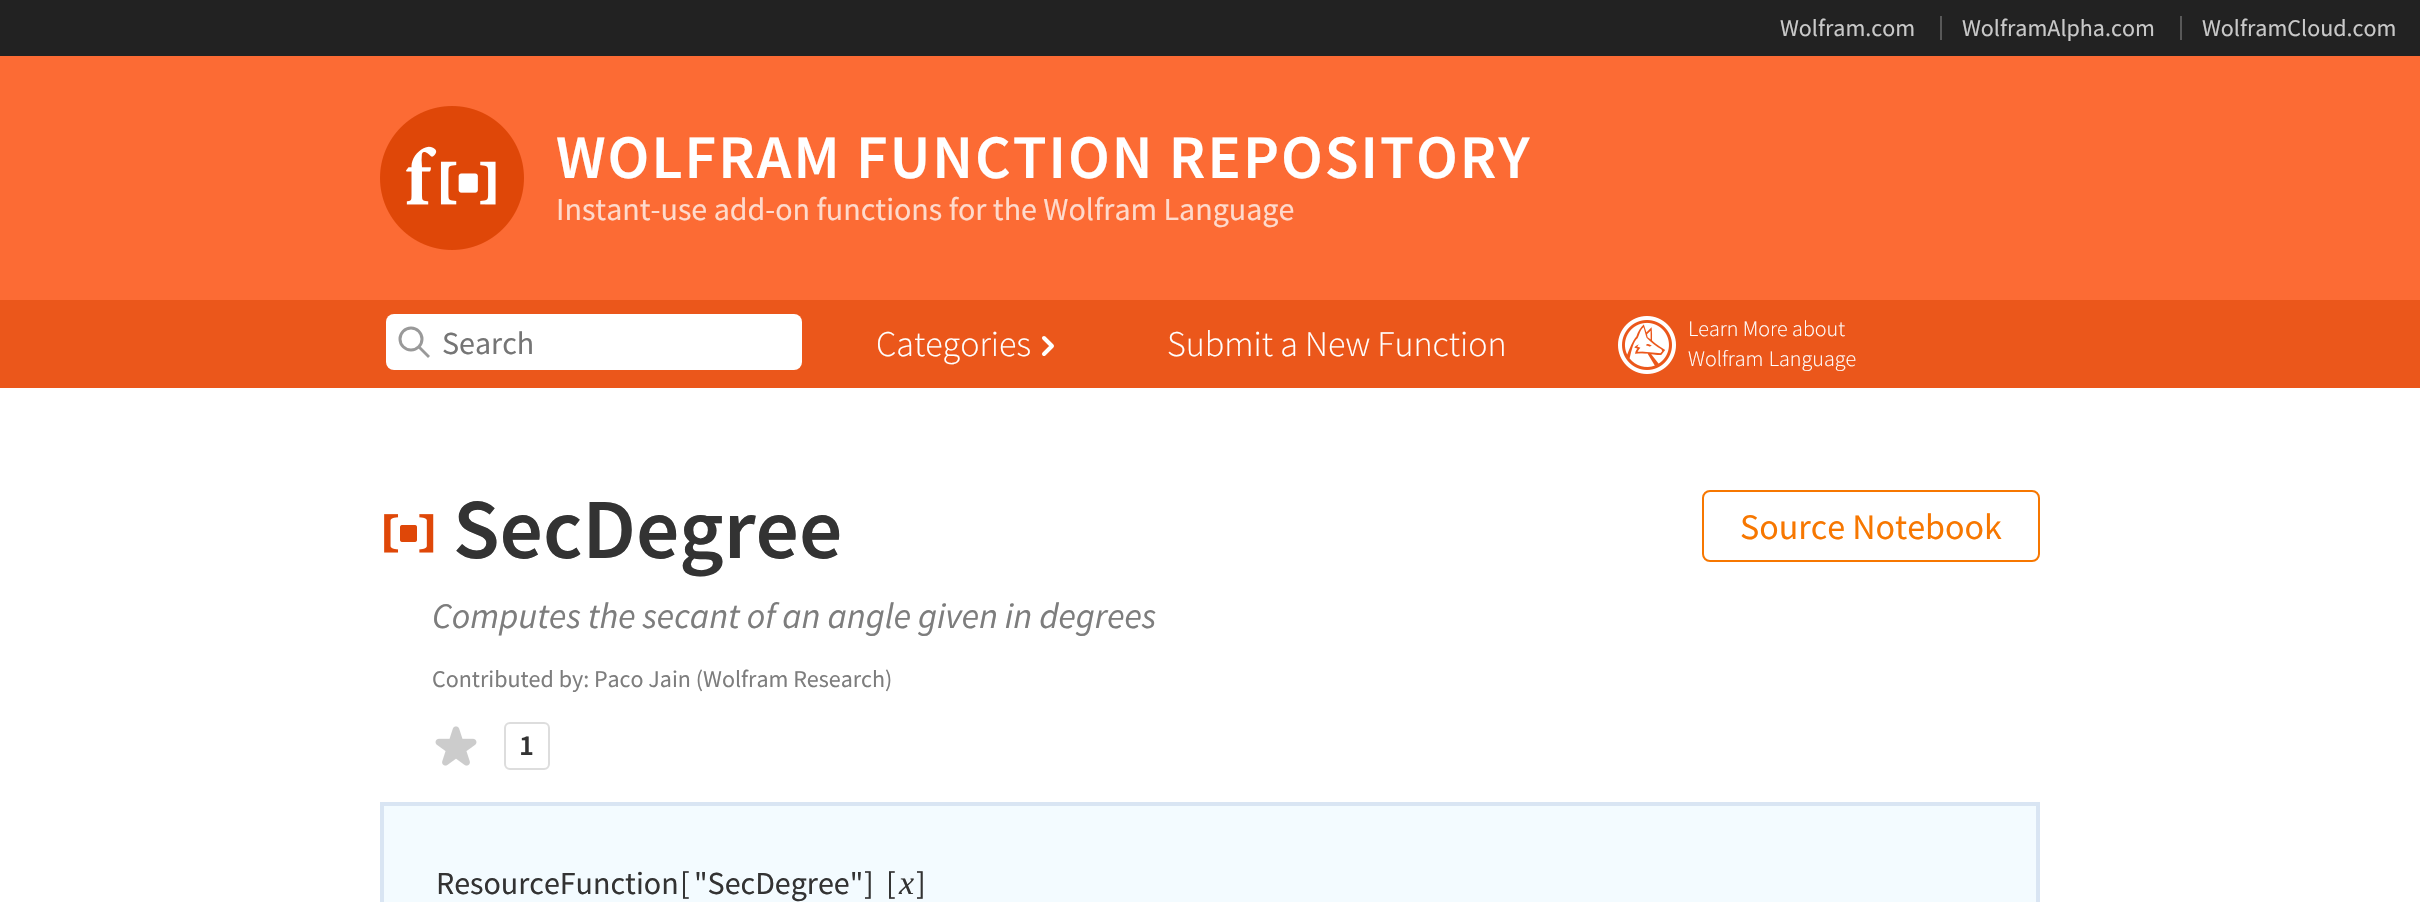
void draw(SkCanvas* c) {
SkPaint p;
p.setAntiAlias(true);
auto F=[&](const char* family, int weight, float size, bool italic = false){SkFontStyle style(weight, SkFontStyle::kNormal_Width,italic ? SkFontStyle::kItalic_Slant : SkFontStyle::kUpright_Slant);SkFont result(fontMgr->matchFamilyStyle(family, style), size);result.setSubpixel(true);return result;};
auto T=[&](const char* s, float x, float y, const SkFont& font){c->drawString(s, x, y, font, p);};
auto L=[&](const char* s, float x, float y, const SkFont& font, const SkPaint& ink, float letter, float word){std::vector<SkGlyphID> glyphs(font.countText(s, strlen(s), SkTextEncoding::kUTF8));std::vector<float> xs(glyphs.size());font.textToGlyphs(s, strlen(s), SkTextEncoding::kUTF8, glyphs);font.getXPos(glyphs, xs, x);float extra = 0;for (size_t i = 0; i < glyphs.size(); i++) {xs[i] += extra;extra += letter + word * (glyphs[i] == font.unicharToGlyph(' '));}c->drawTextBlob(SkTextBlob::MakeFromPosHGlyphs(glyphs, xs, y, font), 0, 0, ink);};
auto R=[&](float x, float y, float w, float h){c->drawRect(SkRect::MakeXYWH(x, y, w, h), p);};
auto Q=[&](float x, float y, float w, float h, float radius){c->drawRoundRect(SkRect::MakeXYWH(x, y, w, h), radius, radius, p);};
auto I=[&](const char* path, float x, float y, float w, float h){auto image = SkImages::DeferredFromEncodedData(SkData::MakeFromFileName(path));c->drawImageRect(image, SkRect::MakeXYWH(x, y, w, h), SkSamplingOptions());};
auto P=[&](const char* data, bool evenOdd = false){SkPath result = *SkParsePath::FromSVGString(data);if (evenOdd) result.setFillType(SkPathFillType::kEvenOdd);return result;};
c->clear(0xffffffff);
p.setColor(0xff222222);
R(0,0,2420,56);
auto f1 = F("Source Sans Pro",400,24);
p.setColor(0xffc8c8c8);
T("Wolfram.com",1780,36,f1);
p.setColor(0xff595959);
R(1940,16,2,24);
p.setColor(0xffc8c8c8);
T("WolframAlpha.com",1962,36,f1);
p.setColor(0xff595959);
R(2180,16,2,24);
p.setColor(0xffc8c8c8);
T("WolframCloud.com",2202,36,f1);
p.setColor(0xfffc6b34);
R(0,56,2420,244);
I("1.png",380,106,144,144);
auto f2 = F("Source Sans Pro",600,62);
p.setColor(0xffffffff);
L("WOLFRAM FUNCTION REPOSITORY",556,178,f2,p,2,0);
auto f3 = F("Source Sans Pro",400,32);
p.setColor(0xfffedacc);
T("Instant-use add-on functions for the Wolfram Language",556,220,f3);
p.setColor(0xffeb571b);
R(0,300,2420,88);
p.setColor(0xffffffff);
Q(386,314,416,56,8);
p.setStroke(true);
p.setStrokeWidth(3);
p.setColor(0xff999999);
c->drawCircle(411,339,11,p);
p.setStroke(false);
c->drawPath(P("M418 348l10 10l2-2l-10-10z"),p);
p.setColor(0xff757575);
T("Search",442,354,f3);
auto f4 = F("Source Sans Pro",300,36);
p.setColor(0xffffffff);
T("Categories",876,356,f4);
p.setStroke(true);
p.setStrokeWidth(4);
p.setStrokeCap(SkPaint::kRound_Cap);
p.setStrokeJoin(SkPaint::kRound_Join);
c->drawPath(P("M1044 338l8 8l-8 8"),p);
p.setStroke(false);
T("Submit a New Function",1167,356,f4);
I("2.png",1618,316,58,58);
auto f5 = F("Source Sans Pro",300,22);
T("Learn More about",1688,336,f5);
L("Wolfram Language",1688,366,f5,p,0,1);
I("3.png",384,514,50,39);
auto f6 = F("Source Sans Pro",600,85.5);
p.setColor(0xff333333);
T("SecDegree",453,558,f6);
p.setStroke(true);
p.setStrokeWidth(2);
p.setStrokeCap(SkPaint::kButt_Cap);
p.setStrokeJoin(SkPaint::kMiter_Join);
p.setColor(0xfff77700);
c->drawRoundRect(SkRect::MakeXYWH(1703,491,336,70),7,7,p);
auto f7 = F("Source Sans Pro",400,36);
p.setStroke(false);
T("Source Notebook",1740,539,f7);
auto f8 = F("Source Sans Pro",400,36,true);
p.setColor(0xff7d7d7d);
T("Computes the secant of an angle given in degrees",432,628,f8);
T("Contributed by: Paco Jain (Wolfram Research)",432,687,f1);
I("4.png",435,726,42,40);
p.setStroke(true);
p.setColor(0xffdddddd);
c->drawRoundRect(SkRect::MakeXYWH(505,723,44,46),5,5,p);
auto f9 = F("Source Sans Pro",600,29);
p.setStroke(false);
p.setColor(0xff333333);
T("1",519,755,f9);
p.setColor(0xfff3fbff);
c->drawRect(SkRect::MakeXYWH(382,804,1656,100),p);
p.setStroke(true);
p.setStrokeWidth(4);
p.setColor(0xffd9e5f3);
c->drawRect(SkRect::MakeXYWH(382,804,1656,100),p);
p.setStroke(false);
p.setColor(0xff333333);
T("ResourceFunction",436,894,f3);
T("[",680,894,f3);
T("\"SecDegree\"",694,894,f3);
T("]",864,894,f3);
T("[",886,894,f3);
auto f10 = F("Liberation Serif",400,34,true);
T("x",899,894,f10);
T("]",916,894,f3);
}
